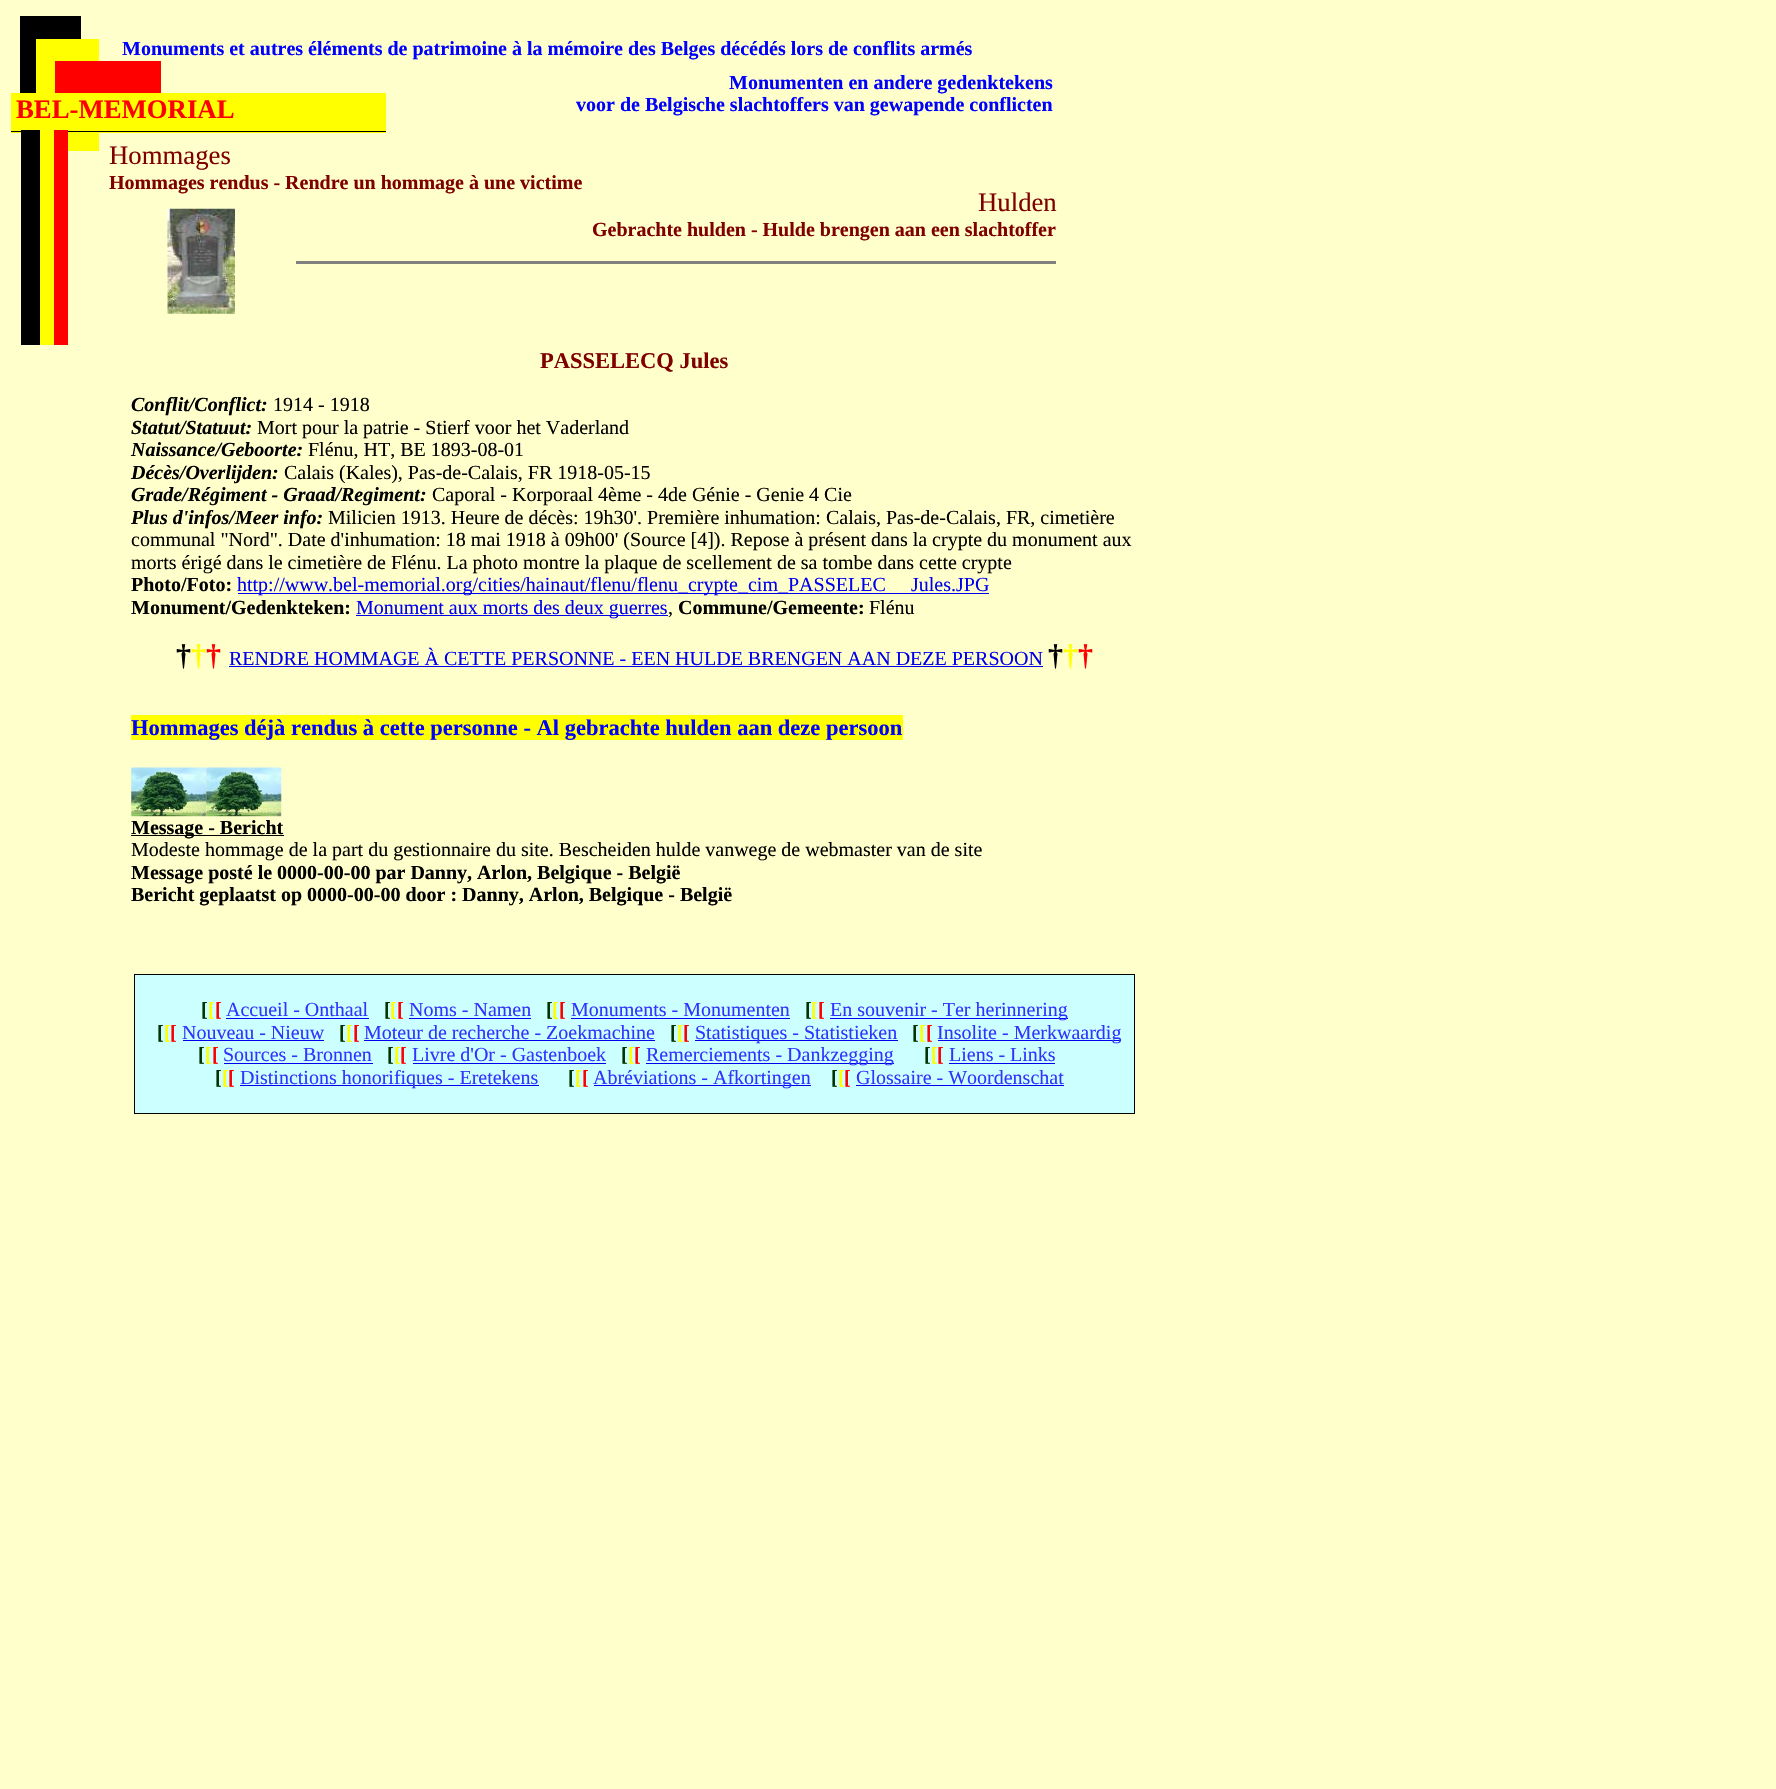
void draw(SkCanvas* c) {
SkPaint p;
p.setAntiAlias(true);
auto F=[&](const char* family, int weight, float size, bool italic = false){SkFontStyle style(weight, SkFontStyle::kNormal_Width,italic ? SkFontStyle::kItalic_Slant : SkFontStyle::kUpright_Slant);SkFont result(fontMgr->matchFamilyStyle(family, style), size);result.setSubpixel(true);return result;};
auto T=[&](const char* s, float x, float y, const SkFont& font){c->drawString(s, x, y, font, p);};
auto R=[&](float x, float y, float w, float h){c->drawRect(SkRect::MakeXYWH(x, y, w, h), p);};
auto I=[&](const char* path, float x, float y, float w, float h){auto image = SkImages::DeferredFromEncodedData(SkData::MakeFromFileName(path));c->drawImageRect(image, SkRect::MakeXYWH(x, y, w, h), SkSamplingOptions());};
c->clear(0xffffffcc);
p.setColor(0xff000000);
R(20,16,61,77);
p.setColor(0xffffff00);
R(36,39,63,112);
p.setColor(0xffff0000);
R(55,61,106,32);
auto f1 = F("Liberation Serif",700,20);
p.setColor(0xff0000ff);
T("Monuments et autres éléments de patrimoine à la mémoire des Belges décédés lors de conflits armés",122,55,f1);
p.setColor(0xffffff00);
R(11,93,375,40);
p.setColor(0xff000000);
R(11,131,375,1);
auto f2 = F("Liberation Serif",700,26.75);
p.setColor(0xffff0000);
T("BEL-MEMORIAL",16,118,f2);
p.setColor(0xff0000ff);
T("Monumenten en andere gedenktekens",729,89,f1);
T("voor de Belgische slachtoffers van gewapende conflicten",576,111,f1);
p.setColor(0xff000000);
R(21,130,19,215);
p.setColor(0xffffff00);
R(40,131,14,214);
p.setColor(0xffff0000);
R(54,130,14,215);
I("1.png",167,208,68,106);
auto f3 = F("Liberation Serif",400,26.75);
p.setColor(0xff800000);
T("Hommages",109,164,f3);
T("Hommages rendus - Rendre un hommage à une victime",109,189,f1);
T("Hulden",978,211,f3);
T("Gebrachte hulden - Hulde brengen aan een slachtoffer",592,236,f1);
p.setColor(0xff808080);
R(296,261,760,3);
auto f4 = F("Liberation Serif",700,22.5);
p.setColor(0xff800000);
T("PASSELECQ Jules",540,368,f4);
auto f5 = F("Liberation Serif",700,20,true);
p.setColor(0xff000000);
T("Conflit/Conflict:",131,411,f5);
auto f6 = F("Liberation Serif",400,20);
T("1914 - 1918",273,411,f6);
T("Statut/Statuut:",131,434,f5);
T("Mort pour la patrie - Stierf voor het Vaderland",257,434,f6);
T("Naissance/Geboorte:",131,456,f5);
T("Flénu, HT, BE 1893-08-01",308,456,f6);
T("Décès/Overlijden:",131,479,f5);
T("Calais (Kales), Pas-de-Calais, FR 1918-05-15",284,479,f6);
T("Grade/Régiment - Graad/Regiment:",131,501,f5);
T("Caporal - Korporaal 4ème - 4de Génie - Genie 4 Cie",432,501,f6);
T("Plus d'infos/Meer info:",131,524,f5);
T("Milicien 1913. Heure de décès: 19h30'. Première inhumation: Calais, Pas-de-Calais, FR, cimetière",328,524,f6);
T("communal \"Nord\". Date d'inhumation: 18 mai 1918 à 09h00' (Source [4]). Repose à présent dans la crypte du monument aux",131,546,f6);
T("morts érigé dans le cimetière de Flénu. La photo montre la plaque de scellement de sa tombe dans cette crypte",131,569,f6);
T("Photo/Foto:",131,591,f1);
p.setColor(0xff0000ee);
R(238,593,751,1);
T("http://www.bel-memorial.org/cities/hainaut/flenu/flenu_crypte_cim_PASSELEC",237,591,f6);
T("Jules.JPG",911,591,f6);
p.setColor(0xff000000);
T("Monument/Gedenkteken:",131,614,f1);
p.setColor(0xff0000ee);
R(356,615,312,1);
T("Monument aux morts des deux guerres",356,614,f6);
p.setColor(0xff000000);
T(",",668,614,f6);
T("Commune/Gemeente:",678,614,f1);
T("Flénu",869,614,f6);
auto f7 = F("Liberation Serif",700,30);
T("†",176,665,f7);
p.setColor(0xffffff00);
T("†",191,665,f7);
p.setColor(0xffff0000);
T("†",206,665,f7);
p.setColor(0xff0000ee);
T("RENDRE HOMMAGE À CETTE PERSONNE - EEN HULDE BRENGEN AAN DEZE PERSOON",229,665,f6);
R(229,666,814,1);
p.setColor(0xff000000);
T("†",1048,665,f7);
p.setColor(0xffffff00);
T("†",1063,665,f7);
p.setColor(0xffff0000);
T("†",1078,665,f7);
p.setColor(0xffffff00);
R(131,715,772,25);
p.setColor(0xff0000ff);
T("Hommages déjà rendus à cette personne - Al gebrachte hulden aan deze persoon",131,735,f4);
I("2.png",131,767,76,50);
I("3.png",206,767,76,50);
p.setColor(0xff000000);
R(131,835,153,1);
T("Message - Bericht",131,834,f1);
T("Modeste hommage de la part du gestionnaire du site. Bescheiden hulde vanwege de webmaster van de site",131,856,f6);
T("Message posté le 0000-00-00 par Danny, Arlon, Belgique - België",131,879,f1);
T("Bericht geplaatst op 0000-00-00 door : Danny, Arlon, Belgique - België",131,901,f1);
p.setColor(0xffccffff);
c->drawRect(SkRect::MakeXYWH(134.5,974.5,1000,139),p);
p.setStroke(true);
p.setStrokeWidth(1);
p.setColor(0xff000000);
c->drawRect(SkRect::MakeXYWH(134.5,974.5,1000,139),p);
p.setStroke(false);
p.setColor(0xff003300);
T("[",201,1016,f1);
p.setColor(0xffffff00);
T("[",208,1016,f1);
p.setColor(0xffff0000);
T("[",215,1016,f1);
p.setColor(0xff3333ff);
T("Accueil - Onthaal",226,1016,f6);
p.setColor(0xff0000ee);
R(226,1018,143,1);
p.setColor(0xff003300);
T("[",384,1016,f1);
p.setColor(0xffffff00);
T("[",390,1016,f1);
p.setColor(0xffff0000);
T("[",397,1016,f1);
p.setColor(0xff3333ff);
T("Noms - Namen",409,1016,f6);
p.setColor(0xff0000ee);
R(409,1018,122,1);
p.setColor(0xff003300);
T("[",546,1016,f1);
p.setColor(0xffffff00);
T("[",552,1016,f1);
p.setColor(0xffff0000);
T("[",559,1016,f1);
p.setColor(0xff3333ff);
T("Monuments - Monumenten",571,1016,f6);
p.setColor(0xff0000ee);
R(571,1018,219,1);
p.setColor(0xff003300);
T("[",805,1016,f1);
p.setColor(0xffffff00);
T("[",811,1016,f1);
p.setColor(0xffff0000);
T("[",818,1016,f1);
p.setColor(0xff0000ee);
R(830,1018,238,1);
p.setColor(0xff3333ff);
T("En souvenir - Ter herinnering",830,1016,f6);
p.setColor(0xff003300);
T("[",157,1039,f1);
p.setColor(0xffffff00);
T("[",164,1039,f1);
p.setColor(0xffff0000);
T("[",170,1039,f1);
p.setColor(0xff3333ff);
T("Nouveau - Nieuw",182,1039,f6);
p.setColor(0xff0000ee);
R(183,1040,141,1);
p.setColor(0xff003300);
T("[",339,1039,f1);
p.setColor(0xffffff00);
T("[",346,1039,f1);
p.setColor(0xffff0000);
T("[",353,1039,f1);
p.setColor(0xff3333ff);
T("Moteur de recherche - Zoekmachine",364,1039,f6);
p.setColor(0xff0000ee);
R(364,1040,291,1);
p.setColor(0xff003300);
T("[",670,1039,f1);
p.setColor(0xffffff00);
T("[",677,1039,f1);
p.setColor(0xffff0000);
T("[",683,1039,f1);
p.setColor(0xff0000ee);
R(695,1040,203,1);
p.setColor(0xff3333ff);
T("Statistiques - Statistieken",695,1039,f6);
p.setColor(0xff003300);
T("[",912,1039,f1);
p.setColor(0xffffff00);
T("[",919,1039,f1);
p.setColor(0xffff0000);
T("[",926,1039,f1);
p.setColor(0xff0000ee);
R(938,1040,183,1);
p.setColor(0xff3333ff);
T("Insolite - Merkwaardig",937,1039,f6);
p.setColor(0xff003300);
T("[",198,1061,f1);
p.setColor(0xffffff00);
T("[",205,1061,f1);
p.setColor(0xffff0000);
T("[",212,1061,f1);
p.setColor(0xff3333ff);
T("Sources - Bronnen",223,1061,f6);
p.setColor(0xff0000ee);
R(224,1063,149,1);
p.setColor(0xff003300);
T("[",387,1061,f1);
p.setColor(0xffffff00);
T("[",394,1061,f1);
p.setColor(0xffff0000);
T("[",400,1061,f1);
p.setColor(0xff3333ff);
T("Livre d'Or - Gastenboek",412,1061,f6);
p.setColor(0xff0000ee);
R(413,1063,193,1);
p.setColor(0xff003300);
T("[",621,1061,f1);
p.setColor(0xffffff00);
T("[",628,1061,f1);
p.setColor(0xffff0000);
T("[",634,1061,f1);
p.setColor(0xff0000ee);
R(646,1063,248,1);
p.setColor(0xff3333ff);
T("Remerciements - Dankzegging",646,1061,f6);
p.setColor(0xff003300);
T("[",924,1061,f1);
p.setColor(0xffffff00);
T("[",931,1061,f1);
p.setColor(0xffff0000);
T("[",937,1061,f1);
p.setColor(0xff3333ff);
T("Liens - Links",949,1061,f6);
p.setColor(0xff0000ee);
R(949,1063,106,1);
p.setColor(0xff003300);
T("[",215,1084,f1);
p.setColor(0xffffff00);
T("[",222,1084,f1);
p.setColor(0xffff0000);
T("[",228,1084,f1);
p.setColor(0xff0000ee);
R(240,1085,299,1);
p.setColor(0xff3333ff);
T("Distinctions honorifiques - Eretekens",240,1084,f6);
p.setColor(0xff003300);
T("[",568,1084,f1);
p.setColor(0xffffff00);
T("[",575,1084,f1);
p.setColor(0xffff0000);
T("[",582,1084,f1);
p.setColor(0xff0000ee);
R(594,1085,217,1);
p.setColor(0xff3333ff);
T("Abréviations - Afkortingen",593,1084,f6);
p.setColor(0xff003300);
T("[",831,1084,f1);
p.setColor(0xffffff00);
T("[",838,1084,f1);
p.setColor(0xffff0000);
T("[",844,1084,f1);
p.setColor(0xff3333ff);
T("Glossaire - Woordenschat",856,1084,f6);
p.setColor(0xff0000ee);
R(856,1085,208,1);
}
